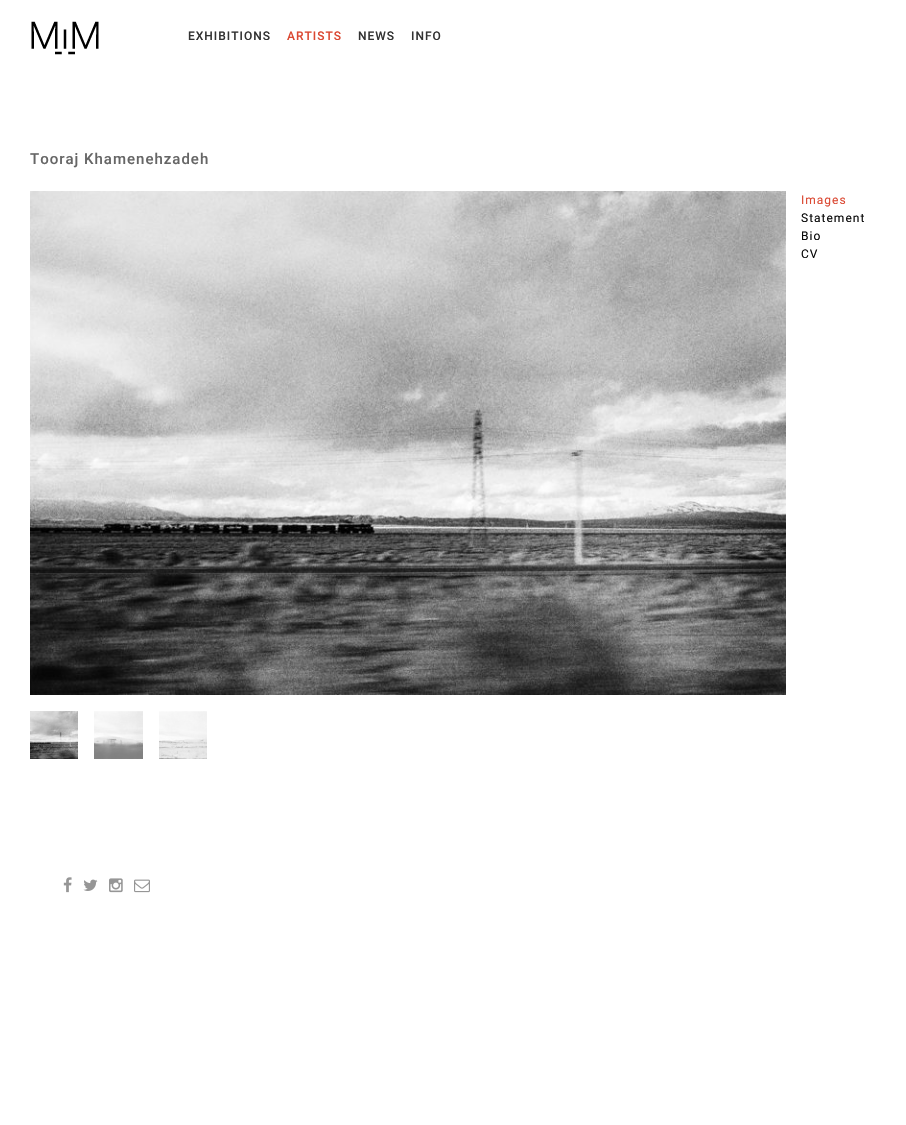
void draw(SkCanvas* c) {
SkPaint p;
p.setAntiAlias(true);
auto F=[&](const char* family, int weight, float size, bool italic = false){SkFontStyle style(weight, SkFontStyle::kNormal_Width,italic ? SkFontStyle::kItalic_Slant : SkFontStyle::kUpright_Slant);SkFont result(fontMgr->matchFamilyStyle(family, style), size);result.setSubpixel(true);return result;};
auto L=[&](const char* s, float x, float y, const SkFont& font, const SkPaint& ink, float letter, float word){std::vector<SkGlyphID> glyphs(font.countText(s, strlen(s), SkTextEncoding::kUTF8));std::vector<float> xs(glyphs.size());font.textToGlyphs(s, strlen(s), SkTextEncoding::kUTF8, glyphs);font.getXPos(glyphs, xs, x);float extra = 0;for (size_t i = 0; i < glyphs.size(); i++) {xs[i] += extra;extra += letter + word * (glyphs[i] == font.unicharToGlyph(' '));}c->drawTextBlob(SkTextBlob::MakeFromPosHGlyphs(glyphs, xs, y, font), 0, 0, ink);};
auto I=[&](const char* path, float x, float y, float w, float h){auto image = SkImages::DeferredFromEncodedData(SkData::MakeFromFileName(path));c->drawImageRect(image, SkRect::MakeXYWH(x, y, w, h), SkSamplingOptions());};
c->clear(0xffffffff);
I("1.png",31,21,68,34);
auto f1 = F("Roboto",500,12);
p.setColor(0xff333333);
L("EXHIBITIONS",188,40,f1,p,1,0);
p.setColor(0xffdb4832);
L("ARTISTS",287,40,f1,p,1,0);
p.setColor(0xff333333);
L("NEWS",358,40,f1,p,1,0);
L("INFO",411,40,f1,p,1,0);
auto f2 = F("Roboto",500,15);
p.setColor(0xff666666);
L("Tooraj Khamenehzadeh",30,164,f2,p,1,0);
I("2.png",30,191,756,504);
I("3.png",30,711,48,48);
I("4.png",94,711,49,48);
I("5.png",159,711,48,48);
auto f3 = F("Roboto",400,12);
p.setColor(0xffdb4832);
L("Images",801,204,f3,p,1,0);
p.setColor(0xff0a0a0a);
L("Statement",801,222,f3,p,1,0);
L("Bio",801,240,f3,p,1,0);
L("CV",801,258,f3,p,1,0);
I("6.png",63,877,9,16);
I("7.png",83,879,15,12);
I("8.png",109,878,14,15);
I("9.png",134,879,16,14);
}
